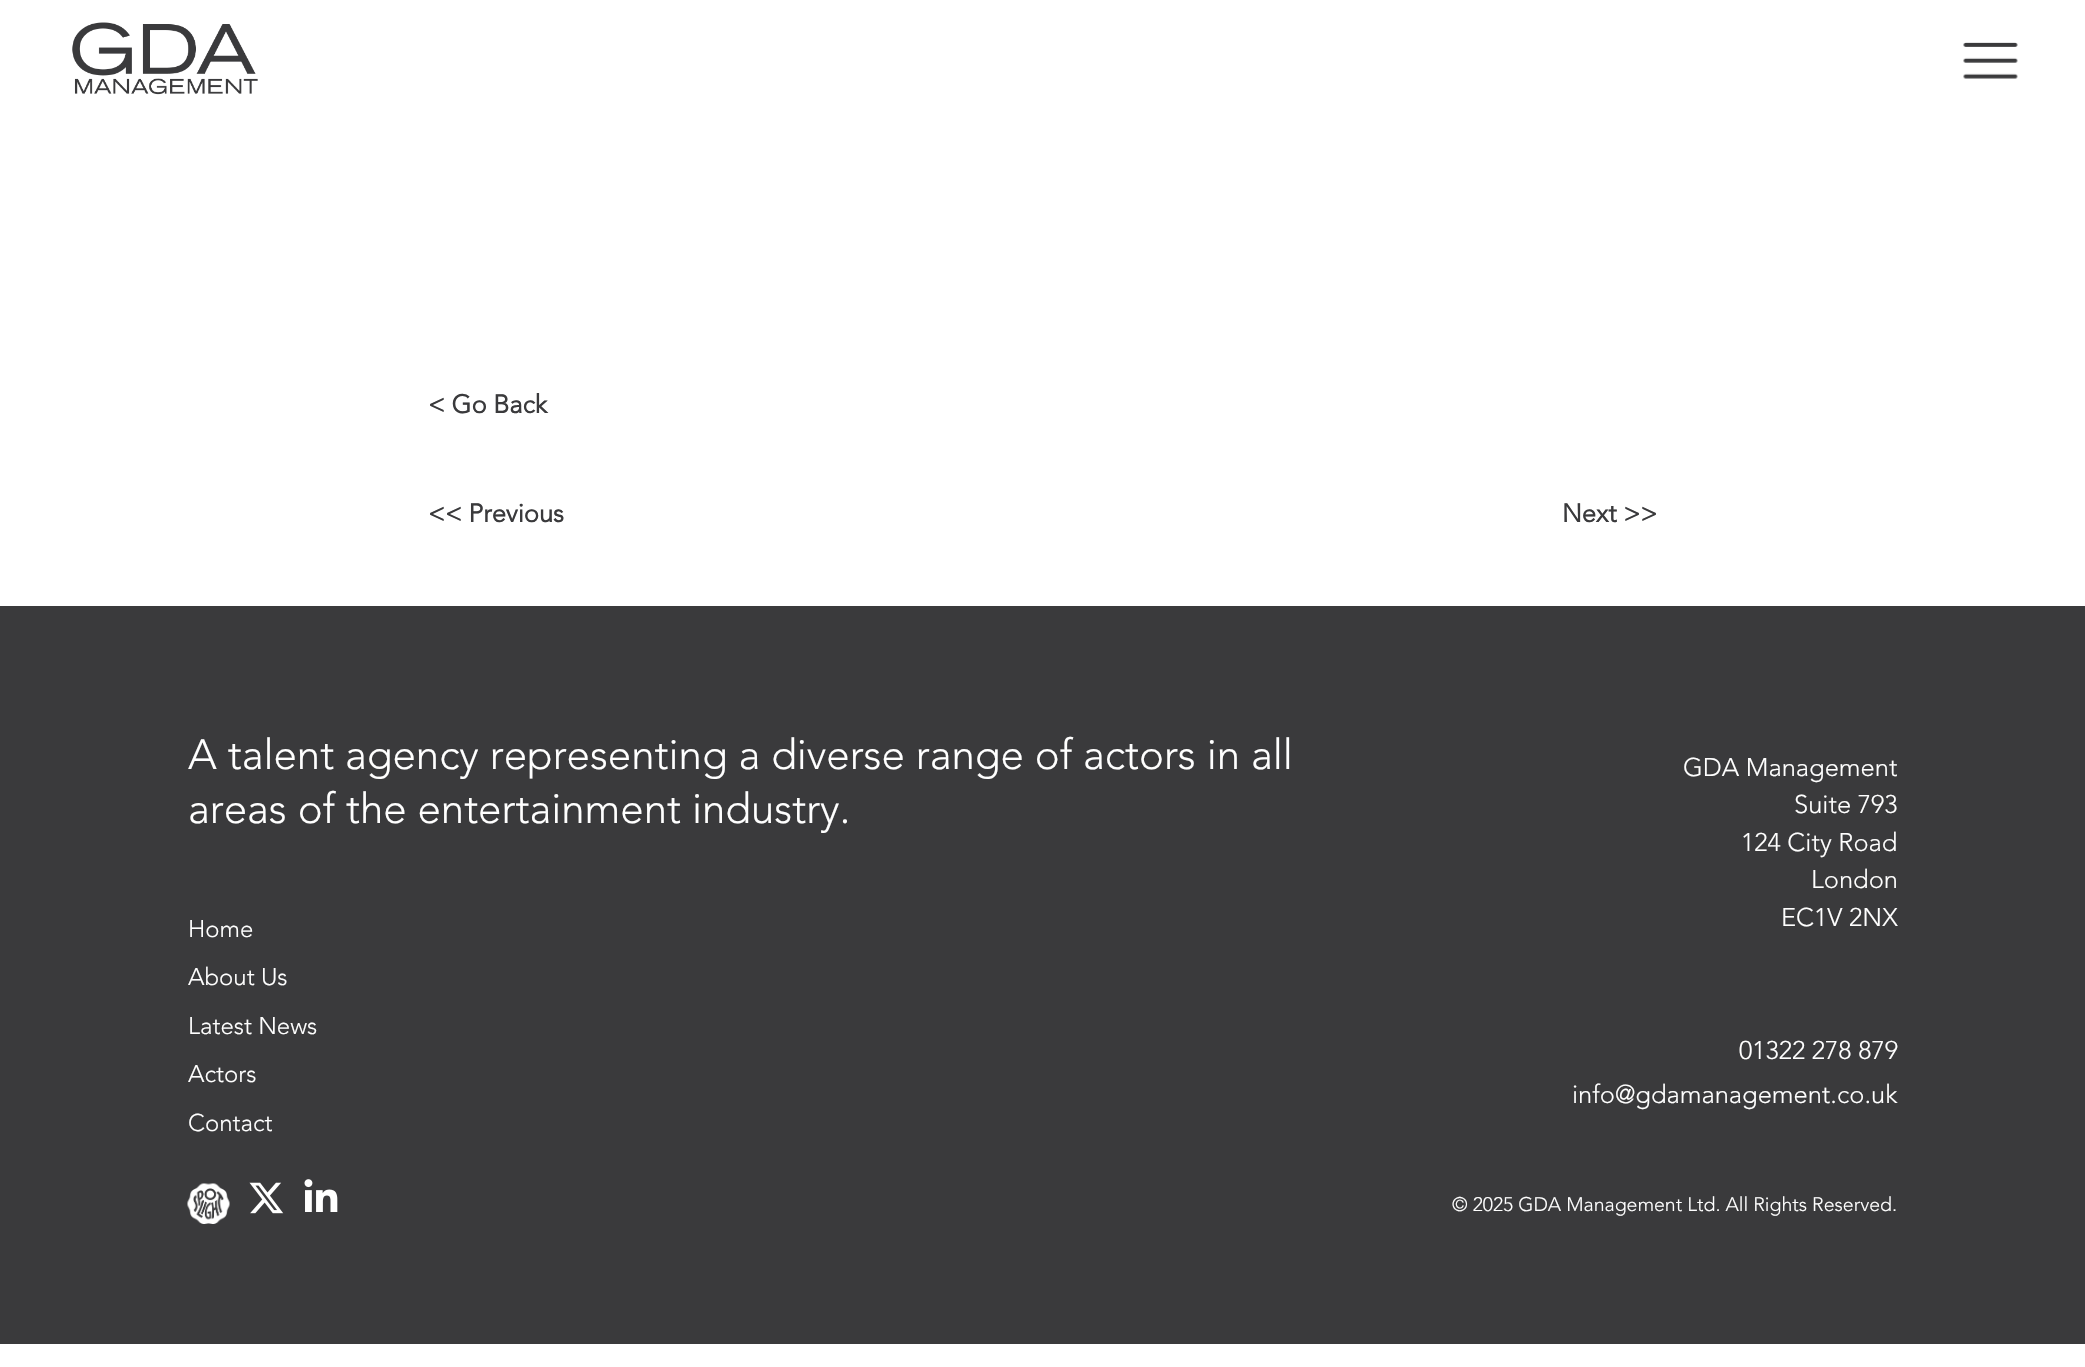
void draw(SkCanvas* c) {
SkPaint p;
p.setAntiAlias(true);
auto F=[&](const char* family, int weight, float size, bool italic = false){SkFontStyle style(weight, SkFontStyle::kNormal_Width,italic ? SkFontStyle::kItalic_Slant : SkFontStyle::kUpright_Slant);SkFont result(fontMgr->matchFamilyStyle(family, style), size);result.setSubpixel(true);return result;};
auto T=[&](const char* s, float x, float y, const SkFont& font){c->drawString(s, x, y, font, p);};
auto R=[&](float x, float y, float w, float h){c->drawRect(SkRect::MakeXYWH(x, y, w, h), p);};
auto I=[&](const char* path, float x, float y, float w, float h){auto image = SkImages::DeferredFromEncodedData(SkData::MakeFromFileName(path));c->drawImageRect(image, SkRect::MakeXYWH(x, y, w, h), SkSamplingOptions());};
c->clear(0xffffffff);
I("1.png",72,22,186,73);
I("2.png",1963,42,55,37);
auto f1 = F("Avenir",700,25.5);
p.setColor(0xff3a3a3c);
T("< Go Back",428,413,f1);
T("<< Previous",428,522,f1);
T("Next >>",1562,522,f1);
R(0,606,2085,738);
auto f2 = F("Avenir",300,42);
p.setColor(0xffffffff);
T("A talent agency representing a diverse range of actors in all",188,769,f2);
T("areas of the entertainment industry.",188,823,f2);
auto f3 = F("Avenir",300,24);
T("Home",188,937,f3);
T("About Us",188,985,f3);
T("Latest News",188,1034,f3);
T("Actors",188,1082,f3);
T("Contact",188,1131,f3);
I("3.png",187,1183,43,41);
I("4.png",249,1182,35,32);
I("5.png",304,1179,34,33);
auto f4 = F("Avenir",300,25.5);
T("GDA Management",1683,776,f4);
T("Suite 793",1794,813,f4);
T("124 City Road",1741,851,f4);
T("London",1811,888,f4);
T("EC1V 2NX",1781,926,f4);
T("01322 278 879",1739,1059,f4);
T("info@gdamanagement.co.uk",1572,1103,f4);
auto f5 = F("Avenir",300,19.5);
T("© 2025 GDA Management Ltd. All Rights Reserved.",1452,1211,f5);
}
